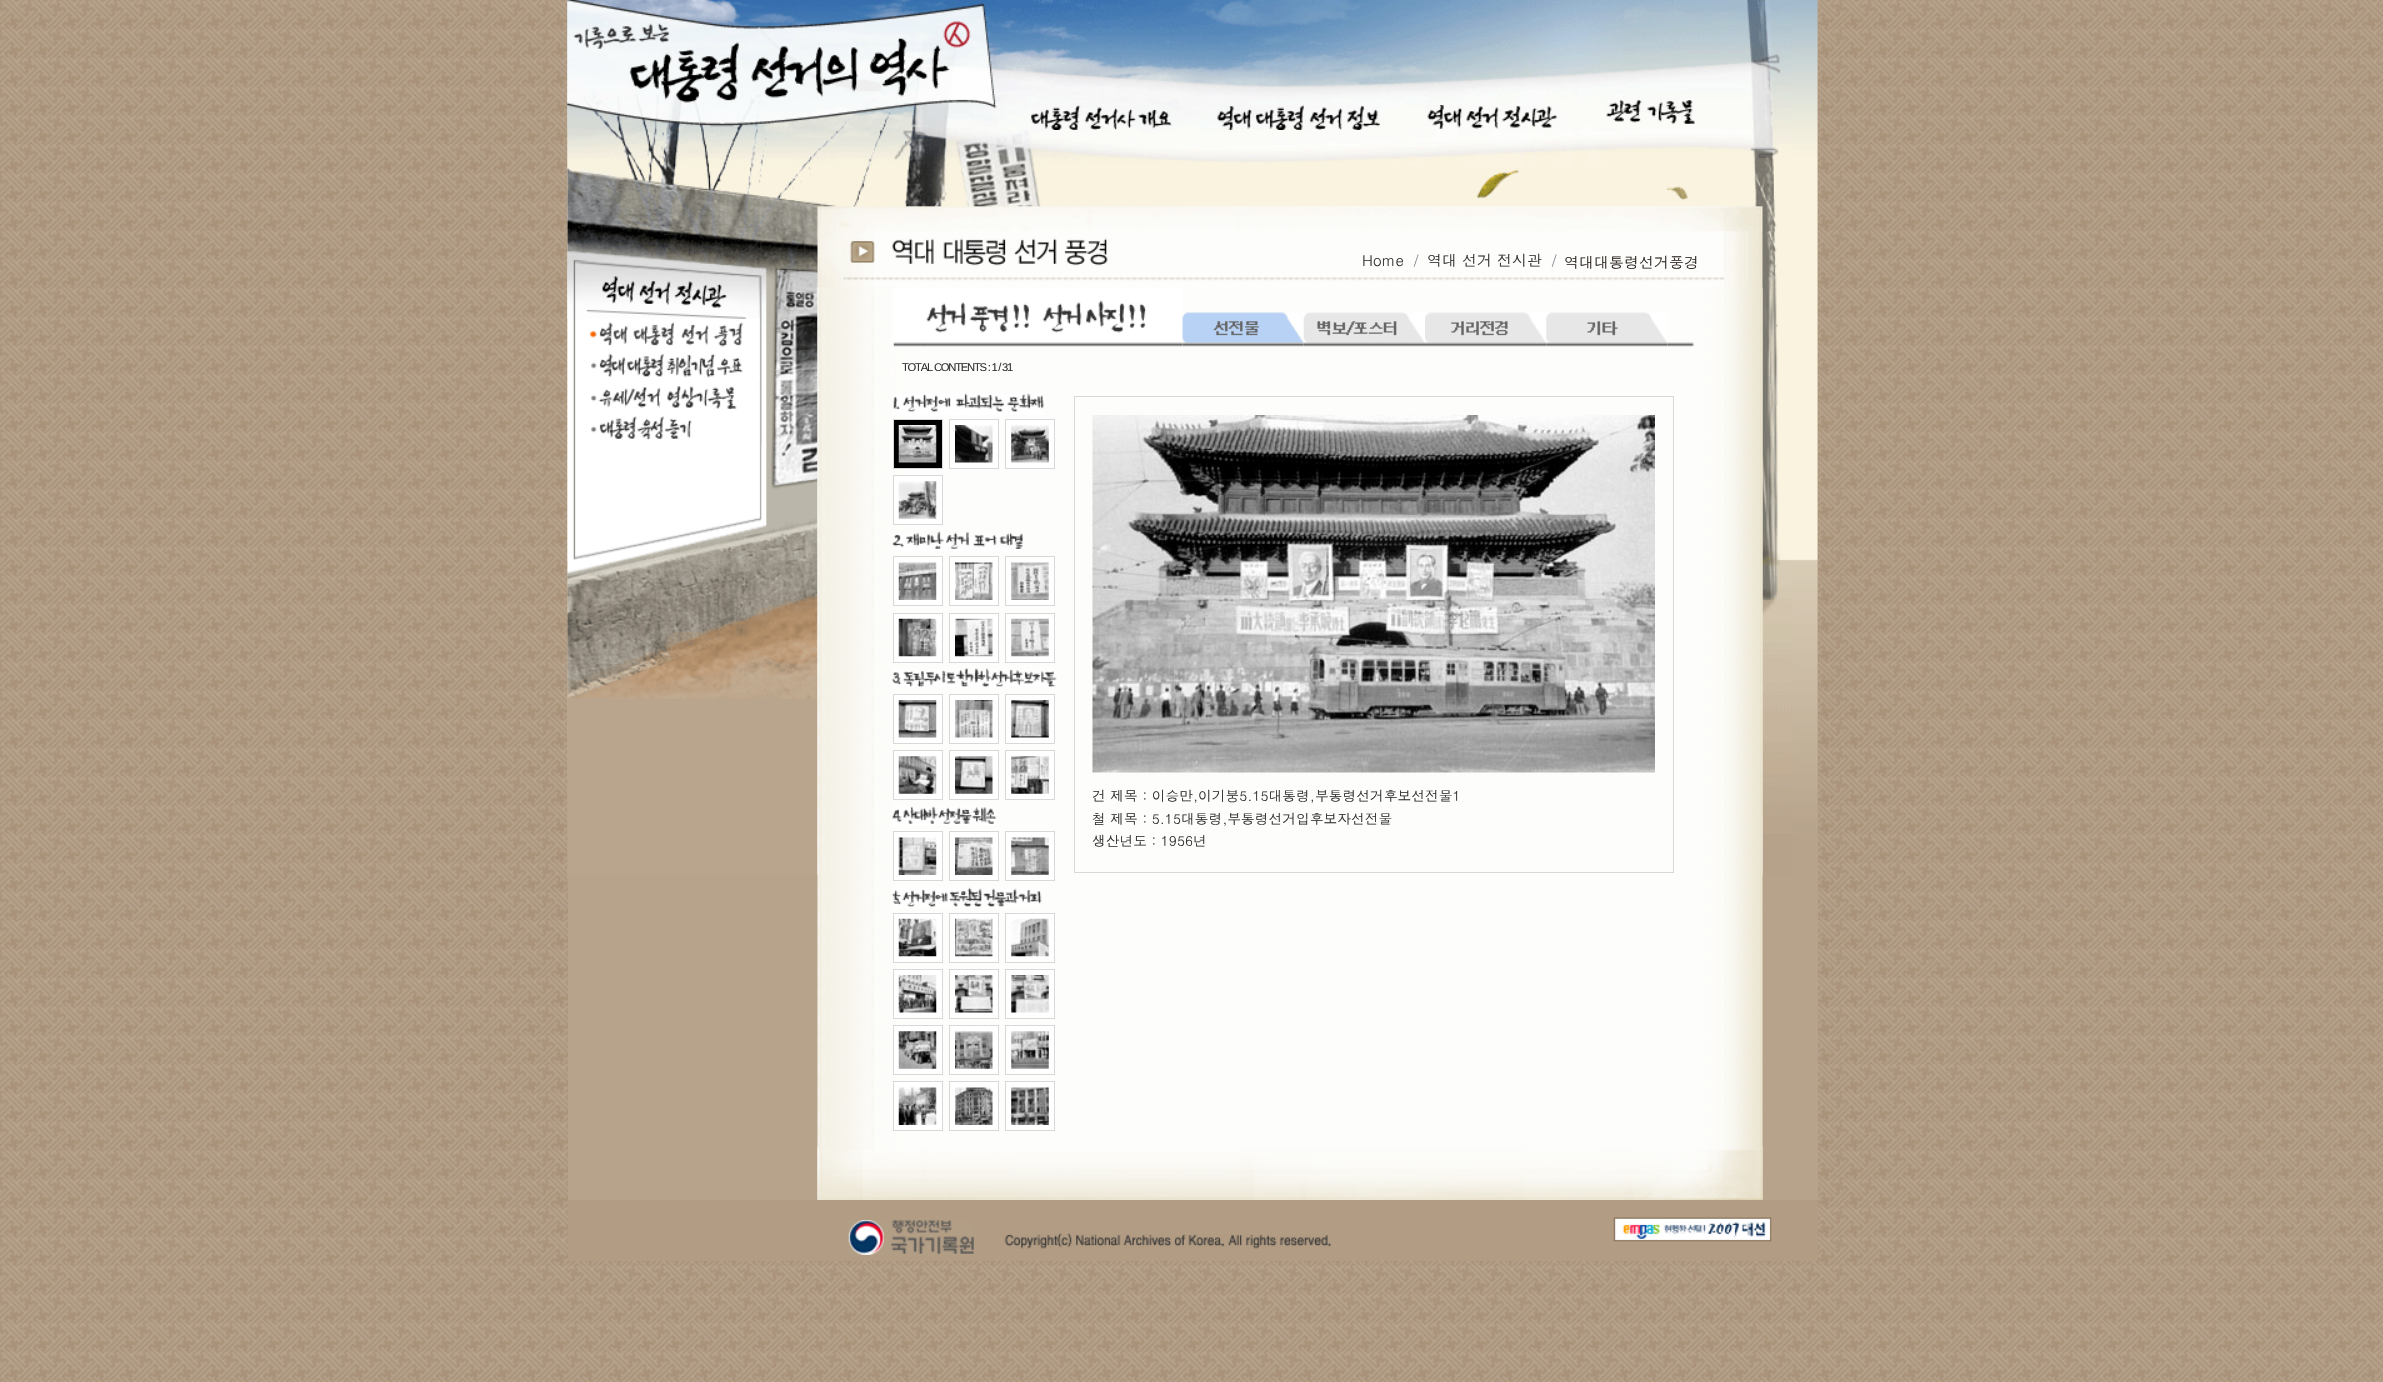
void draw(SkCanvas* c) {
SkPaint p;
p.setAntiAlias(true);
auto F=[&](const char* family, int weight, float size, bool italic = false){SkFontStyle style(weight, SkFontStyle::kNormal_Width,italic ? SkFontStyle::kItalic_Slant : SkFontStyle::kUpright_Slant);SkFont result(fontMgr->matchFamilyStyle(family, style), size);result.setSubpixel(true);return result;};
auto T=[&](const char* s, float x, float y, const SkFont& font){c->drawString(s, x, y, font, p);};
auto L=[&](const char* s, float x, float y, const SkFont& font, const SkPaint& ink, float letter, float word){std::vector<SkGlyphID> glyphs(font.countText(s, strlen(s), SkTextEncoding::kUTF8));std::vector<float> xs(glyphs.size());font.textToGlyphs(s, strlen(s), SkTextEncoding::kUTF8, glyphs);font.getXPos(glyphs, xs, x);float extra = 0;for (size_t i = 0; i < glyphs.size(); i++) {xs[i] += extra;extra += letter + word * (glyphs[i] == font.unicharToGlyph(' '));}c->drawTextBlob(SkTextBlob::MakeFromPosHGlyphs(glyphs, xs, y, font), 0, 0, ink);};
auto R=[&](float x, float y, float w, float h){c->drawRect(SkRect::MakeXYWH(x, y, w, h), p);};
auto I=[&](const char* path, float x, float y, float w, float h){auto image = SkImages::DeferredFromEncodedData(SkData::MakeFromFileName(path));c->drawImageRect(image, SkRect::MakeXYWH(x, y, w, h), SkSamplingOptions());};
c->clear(0xffffffff);
I("1.png",0,0,2383,1382);
p.setColor(0xffb7a38b);
R(568,0,1250,1200);
I("2.png",567,0,1251,885);
I("3.png",567,0,1226,875);
I("4.png",567,0,430,127);
I("5.png",1031,105,141,25);
I("6.png",1217,105,163,25);
I("7.png",1427,105,131,24);
I("8.png",1606,100,89,24);
I("9.png",567,268,195,51);
I("10.png",590,318,172,32);
I("11.png",591,350,171,31);
I("12.png",591,381,171,32);
I("13.png",591,412,171,32);
I("14.png",850,241,25,22);
I("15.png",892,238,216,28);
auto f1 = F("Dotum",400,15);
p.setColor(0xff333333);
T("Home",1362,266,f1);
p.setColor(0xff7b808a);
T("/",1413,266,f1);
p.setColor(0xff333333);
T("역대 선거 전시관",1427,266,f1);
p.setColor(0xff7b808a);
T("/",1551,266,f1);
p.setColor(0xff2f2824);
T("역대대통령선거풍경",1564,268,f1);
I("16.png",817,287,946,913);
I("17.png",817,1146,946,54);
I("18.png",1667,342,27,5);
I("19.png",893,288,290,59);
I("20.png",1182,312,122,35);
I("21.png",1303,312,122,35);
I("22.png",1425,312,122,35);
I("23.png",1546,312,122,35);
auto f2 = F("Liberation Sans",400,11.25);
p.setColor(0xff333333);
L("TOTAL CONTENTS : 1 / 31",902,371,f2,p,-1.25,0);
I("24.png",893,393,151,22);
p.setColor(0xff000000);
c->drawRect(SkRect::MakeXYWH(893.5,419.5,49,49),p);
p.setStroke(true);
p.setStrokeWidth(1);
p.setColor(0xffd8d8d8);
c->drawRect(SkRect::MakeXYWH(893.5,419.5,49,49),p);
I("25.png",898,425,39,38);
p.setStroke(false);
p.setColor(0xffffffff);
c->drawRect(SkRect::MakeXYWH(949.5,419.5,49,49),p);
p.setStroke(true);
p.setColor(0xffd8d8d8);
c->drawRect(SkRect::MakeXYWH(949.5,419.5,49,49),p);
I("26.png",955,425,38,38);
p.setStroke(false);
p.setColor(0xffffffff);
c->drawRect(SkRect::MakeXYWH(1005.5,419.5,49,49),p);
p.setStroke(true);
p.setColor(0xffd8d8d8);
c->drawRect(SkRect::MakeXYWH(1005.5,419.5,49,49),p);
I("27.png",1011,425,38,38);
p.setStroke(false);
p.setColor(0xffffffff);
c->drawRect(SkRect::MakeXYWH(893.5,475.5,49,49),p);
p.setStroke(true);
p.setColor(0xffd8d8d8);
c->drawRect(SkRect::MakeXYWH(893.5,475.5,49,49),p);
I("28.png",898,481,39,38);
I("29.png",892,531,131,20);
p.setStroke(false);
p.setColor(0xffffffff);
c->drawRect(SkRect::MakeXYWH(893.5,556.5,49,49),p);
p.setStroke(true);
p.setColor(0xffd8d8d8);
c->drawRect(SkRect::MakeXYWH(893.5,556.5,49,49),p);
I("30.png",898,562,39,38);
p.setStroke(false);
p.setColor(0xffffffff);
c->drawRect(SkRect::MakeXYWH(949.5,556.5,49,49),p);
p.setStroke(true);
p.setColor(0xffd8d8d8);
c->drawRect(SkRect::MakeXYWH(949.5,556.5,49,49),p);
I("31.png",955,562,38,38);
p.setStroke(false);
p.setColor(0xffffffff);
c->drawRect(SkRect::MakeXYWH(1005.5,556.5,49,49),p);
p.setStroke(true);
p.setColor(0xffd8d8d8);
c->drawRect(SkRect::MakeXYWH(1005.5,556.5,49,49),p);
I("32.png",1011,562,38,38);
p.setStroke(false);
p.setColor(0xffffffff);
c->drawRect(SkRect::MakeXYWH(893.5,613.5,49,49),p);
p.setStroke(true);
p.setColor(0xffd8d8d8);
c->drawRect(SkRect::MakeXYWH(893.5,613.5,49,49),p);
I("33.png",898,618,39,39);
p.setStroke(false);
p.setColor(0xffffffff);
c->drawRect(SkRect::MakeXYWH(949.5,613.5,49,49),p);
p.setStroke(true);
p.setColor(0xffd8d8d8);
c->drawRect(SkRect::MakeXYWH(949.5,613.5,49,49),p);
I("34.png",955,618,38,39);
p.setStroke(false);
p.setColor(0xffffffff);
c->drawRect(SkRect::MakeXYWH(1005.5,613.5,49,49),p);
p.setStroke(true);
p.setColor(0xffd8d8d8);
c->drawRect(SkRect::MakeXYWH(1005.5,613.5,49,49),p);
I("35.png",1011,618,38,39);
I("36.png",892,668,165,19);
p.setStroke(false);
p.setColor(0xffffffff);
c->drawRect(SkRect::MakeXYWH(893.5,694.5,49,49),p);
p.setStroke(true);
p.setColor(0xffd8d8d8);
c->drawRect(SkRect::MakeXYWH(893.5,694.5,49,49),p);
I("37.png",898,700,39,38);
p.setStroke(false);
p.setColor(0xffffffff);
c->drawRect(SkRect::MakeXYWH(949.5,694.5,49,49),p);
p.setStroke(true);
p.setColor(0xffd8d8d8);
c->drawRect(SkRect::MakeXYWH(949.5,694.5,49,49),p);
I("38.png",955,700,38,38);
p.setStroke(false);
p.setColor(0xffffffff);
c->drawRect(SkRect::MakeXYWH(1005.5,694.5,49,49),p);
p.setStroke(true);
p.setColor(0xffd8d8d8);
c->drawRect(SkRect::MakeXYWH(1005.5,694.5,49,49),p);
I("39.png",1011,700,38,38);
p.setStroke(false);
p.setColor(0xffffffff);
c->drawRect(SkRect::MakeXYWH(893.5,750.5,49,49),p);
p.setStroke(true);
p.setColor(0xffd8d8d8);
c->drawRect(SkRect::MakeXYWH(893.5,750.5,49,49),p);
I("40.png",898,756,39,38);
p.setStroke(false);
p.setColor(0xffffffff);
c->drawRect(SkRect::MakeXYWH(949.5,750.5,49,49),p);
p.setStroke(true);
p.setColor(0xffd8d8d8);
c->drawRect(SkRect::MakeXYWH(949.5,750.5,49,49),p);
I("41.png",955,756,38,38);
p.setStroke(false);
p.setColor(0xffffffff);
c->drawRect(SkRect::MakeXYWH(1005.5,750.5,49,49),p);
p.setStroke(true);
p.setColor(0xffd8d8d8);
c->drawRect(SkRect::MakeXYWH(1005.5,750.5,49,49),p);
I("42.png",1011,756,38,38);
I("43.png",892,806,105,20);
p.setStroke(false);
p.setColor(0xffffffff);
c->drawRect(SkRect::MakeXYWH(893.5,831.5,49,49),p);
p.setStroke(true);
p.setColor(0xffd8d8d8);
c->drawRect(SkRect::MakeXYWH(893.5,831.5,49,49),p);
I("44.png",898,837,39,38);
p.setStroke(false);
p.setColor(0xffffffff);
c->drawRect(SkRect::MakeXYWH(949.5,831.5,49,49),p);
p.setStroke(true);
p.setColor(0xffd8d8d8);
c->drawRect(SkRect::MakeXYWH(949.5,831.5,49,49),p);
I("45.png",955,837,38,38);
p.setStroke(false);
p.setColor(0xffffffff);
c->drawRect(SkRect::MakeXYWH(1005.5,831.5,49,49),p);
p.setStroke(true);
p.setColor(0xffd8d8d8);
c->drawRect(SkRect::MakeXYWH(1005.5,831.5,49,49),p);
I("46.png",1011,837,38,38);
I("47.png",892,887,150,21);
p.setStroke(false);
p.setColor(0xffffffff);
c->drawRect(SkRect::MakeXYWH(893.5,913.5,49,49),p);
p.setStroke(true);
p.setColor(0xffd8d8d8);
c->drawRect(SkRect::MakeXYWH(893.5,913.5,49,49),p);
I("48.png",898,918,39,39);
p.setStroke(false);
p.setColor(0xffffffff);
c->drawRect(SkRect::MakeXYWH(949.5,913.5,49,49),p);
p.setStroke(true);
p.setColor(0xffd8d8d8);
c->drawRect(SkRect::MakeXYWH(949.5,913.5,49,49),p);
I("49.png",955,918,38,39);
p.setStroke(false);
p.setColor(0xffffffff);
c->drawRect(SkRect::MakeXYWH(1005.5,913.5,49,49),p);
p.setStroke(true);
p.setColor(0xffd8d8d8);
c->drawRect(SkRect::MakeXYWH(1005.5,913.5,49,49),p);
I("50.png",1011,918,38,39);
p.setStroke(false);
p.setColor(0xffffffff);
c->drawRect(SkRect::MakeXYWH(893.5,969.5,49,49),p);
p.setStroke(true);
p.setColor(0xffd8d8d8);
c->drawRect(SkRect::MakeXYWH(893.5,969.5,49,49),p);
I("51.png",898,975,39,38);
p.setStroke(false);
p.setColor(0xffffffff);
c->drawRect(SkRect::MakeXYWH(949.5,969.5,49,49),p);
p.setStroke(true);
p.setColor(0xffd8d8d8);
c->drawRect(SkRect::MakeXYWH(949.5,969.5,49,49),p);
I("52.png",955,975,38,38);
p.setStroke(false);
p.setColor(0xffffffff);
c->drawRect(SkRect::MakeXYWH(1005.5,969.5,49,49),p);
p.setStroke(true);
p.setColor(0xffd8d8d8);
c->drawRect(SkRect::MakeXYWH(1005.5,969.5,49,49),p);
I("53.png",1011,975,38,38);
p.setStroke(false);
p.setColor(0xffffffff);
c->drawRect(SkRect::MakeXYWH(893.5,1025.5,49,49),p);
p.setStroke(true);
p.setColor(0xffd8d8d8);
c->drawRect(SkRect::MakeXYWH(893.5,1025.5,49,49),p);
I("54.png",898,1031,39,38);
p.setStroke(false);
p.setColor(0xffffffff);
c->drawRect(SkRect::MakeXYWH(949.5,1025.5,49,49),p);
p.setStroke(true);
p.setColor(0xffd8d8d8);
c->drawRect(SkRect::MakeXYWH(949.5,1025.5,49,49),p);
I("55.png",955,1031,38,38);
p.setStroke(false);
p.setColor(0xffffffff);
c->drawRect(SkRect::MakeXYWH(1005.5,1025.5,49,49),p);
p.setStroke(true);
p.setColor(0xffd8d8d8);
c->drawRect(SkRect::MakeXYWH(1005.5,1025.5,49,49),p);
I("56.png",1011,1031,38,38);
p.setStroke(false);
p.setColor(0xffffffff);
c->drawRect(SkRect::MakeXYWH(893.5,1081.5,49,49),p);
p.setStroke(true);
p.setColor(0xffd8d8d8);
c->drawRect(SkRect::MakeXYWH(893.5,1081.5,49,49),p);
I("57.png",898,1087,39,38);
p.setStroke(false);
p.setColor(0xffffffff);
c->drawRect(SkRect::MakeXYWH(949.5,1081.5,49,49),p);
p.setStroke(true);
p.setColor(0xffd8d8d8);
c->drawRect(SkRect::MakeXYWH(949.5,1081.5,49,49),p);
I("58.png",955,1087,38,38);
p.setStroke(false);
p.setColor(0xffffffff);
c->drawRect(SkRect::MakeXYWH(1005.5,1081.5,49,49),p);
p.setStroke(true);
p.setColor(0xffd8d8d8);
c->drawRect(SkRect::MakeXYWH(1005.5,1081.5,49,49),p);
I("59.png",1011,1087,38,38);
c->drawRect(SkRect::MakeXYWH(1074.5,396.5,599,476),p);
I("60.png",1092,415,563,358);
auto f3 = F("Dotum",400,13.75);
p.setStroke(false);
p.setColor(0xff333333);
T("건 제목 : 이승만,이기붕5.15대통령,부통령선거후보선전물1",1092,801,f3);
T("철 제목 : 5.15대통령,부통령선거입후보자선전물",1092,824,f3);
T("생산년도 : 1956년",1092,846,f3);
p.setColor(0xffb29d84);
R(568,1200,1250,61);
I("61.png",848,1220,126,35);
I("62.png",1004,1233,328,16);
I("63.png",1613,1217,159,25);
}
